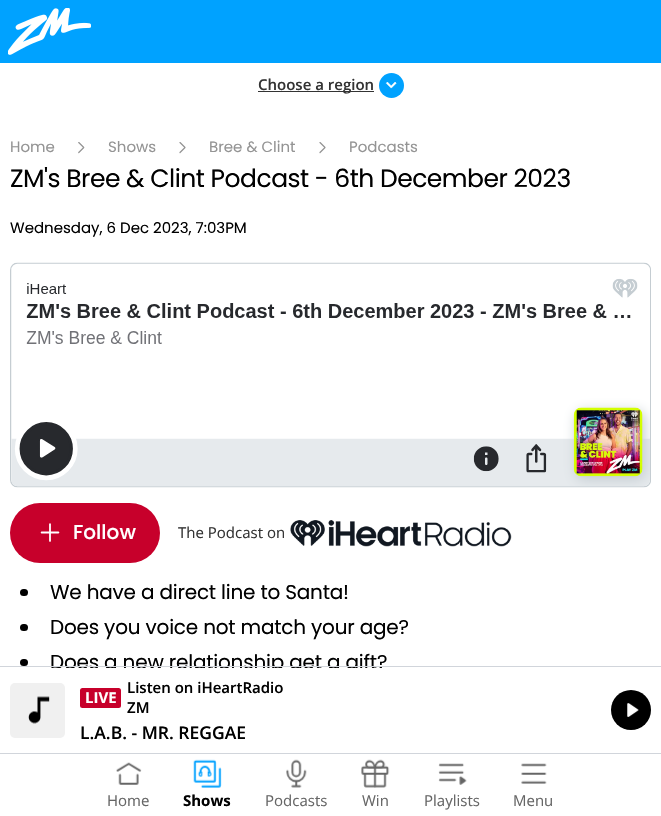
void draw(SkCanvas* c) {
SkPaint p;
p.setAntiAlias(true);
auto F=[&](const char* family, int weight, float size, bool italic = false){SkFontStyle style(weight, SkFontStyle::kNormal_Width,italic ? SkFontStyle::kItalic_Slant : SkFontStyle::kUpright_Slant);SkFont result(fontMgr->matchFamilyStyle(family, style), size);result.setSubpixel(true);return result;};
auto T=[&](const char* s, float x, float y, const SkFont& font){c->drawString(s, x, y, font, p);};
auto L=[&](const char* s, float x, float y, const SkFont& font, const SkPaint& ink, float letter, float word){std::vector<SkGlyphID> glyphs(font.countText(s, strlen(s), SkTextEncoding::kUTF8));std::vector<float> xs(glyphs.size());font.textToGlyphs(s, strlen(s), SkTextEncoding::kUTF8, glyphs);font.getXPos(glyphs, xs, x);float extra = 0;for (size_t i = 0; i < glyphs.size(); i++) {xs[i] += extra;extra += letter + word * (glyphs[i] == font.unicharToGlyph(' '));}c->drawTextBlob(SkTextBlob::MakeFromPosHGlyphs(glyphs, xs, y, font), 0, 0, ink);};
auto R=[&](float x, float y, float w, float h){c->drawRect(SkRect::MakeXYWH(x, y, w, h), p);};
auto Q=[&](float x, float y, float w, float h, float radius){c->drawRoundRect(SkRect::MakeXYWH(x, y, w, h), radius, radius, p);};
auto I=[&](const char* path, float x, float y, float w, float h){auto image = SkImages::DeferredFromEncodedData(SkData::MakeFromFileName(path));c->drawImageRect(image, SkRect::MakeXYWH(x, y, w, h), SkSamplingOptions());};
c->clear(0xffffffff);
p.setColor(0xff00a2ff);
R(0,0,661,63);
I("1.png",8,8,83,47);
p.setColor(0xff333333);
R(258,91,116,1);
auto f1 = F("Open Sans",600,15);
T("Choose a region",258,90,f1);
p.setColor(0xff00a2ff);
c->drawCircle(391.5,85.5,12.5,p);
I("2.png",385,82,12,7);
auto f2 = F("Poppins",400,15);
p.setColor(0xff949494);
T("Home",10,152,f2);
I("3.png",78,142,7,12);
T("Shows",108,152,f2);
I("4.png",179,142,7,12);
T("Bree & Clint",209,152,f2);
I("4.png",319,142,7,12);
T("Podcasts",349,152,f2);
auto f3 = F("Poppins",400,25);
p.setColor(0xff000000);
L("ZM's Bree & Clint Podcast - 6th December 2023",10,187,f3,p,-.5,0);
T("Wednesday, 6 Dec 2023, 7:03PM",10,233,f2);
I("5.png",10,262,641,226);
p.setColor(0xffc7002b);
Q(10,503,150,60,30);
I("6.png",40,523,20,19);
auto f4 = F("Poppins",500,20);
p.setColor(0xffffffff);
T("Follow",73,539,f4);
auto f5 = F("Open Sans",400,15);
p.setColor(0xff333333);
T("The Podcast on",178,538,f5);
I("7.png",290,520,222,27);
p.setColor(0xff000000);
Q(20,589,8,7,3.5);
auto f6 = F("Poppins",400,20);
L("We have a direct line to Santa!",50,599,f6,p,-.2,0);
Q(20,624,8,7,3.5);
L("Does you voice not match your age?",50,634,f6,p,-.2,0);
Q(20,659,8,7,3.5);
L("Does a new relationship get a gift?",50,669,f6,p,-.2,0);
p.setColor(0xffffffff);
R(51,668,331,7);
p.setColor(0xffd1d5db);
R(0,666,661,1);
p.setColor(0xfff0f0f0);
Q(10,683,55,55,5);
I("8.png",28,696,22,28);
p.setColor(0xffc7002b);
Q(80,688,41,20,2.5);
auto f7 = F("Open Sans",700,15);
p.setColor(0xffffffff);
T("LIVE",85,703,f7);
p.setColor(0xff000000);
T("Listen on iHeartRadio",127,693,f1);
T("ZM",127,713,f1);
auto f8 = F("Open Sans",600,17.5);
T("L.A.B. - MR. REGGAE",80,739,f8);
c->drawCircle(631,710,20,p);
I("9.png",627,703,12,14);
p.setColor(0xffd1d5db);
R(0,753,661,1);
I("10.png",116,762,26,23);
p.setColor(0xff666666);
T("Home",107,806,f5);
I("11.png",193,759,29,29);
p.setColor(0xff000000);
T("Shows",183,806,f7);
I("12.png",286,759,21,29);
p.setColor(0xff666666);
T("Podcasts",265,806,f5);
I("13.png",361,759,29,29);
T("Win",362,806,f5);
I("14.png",438,763,29,22);
T("Playlists",424,806,f5);
I("15.png",521,763,26,21);
T("Menu",513,806,f5);
}
